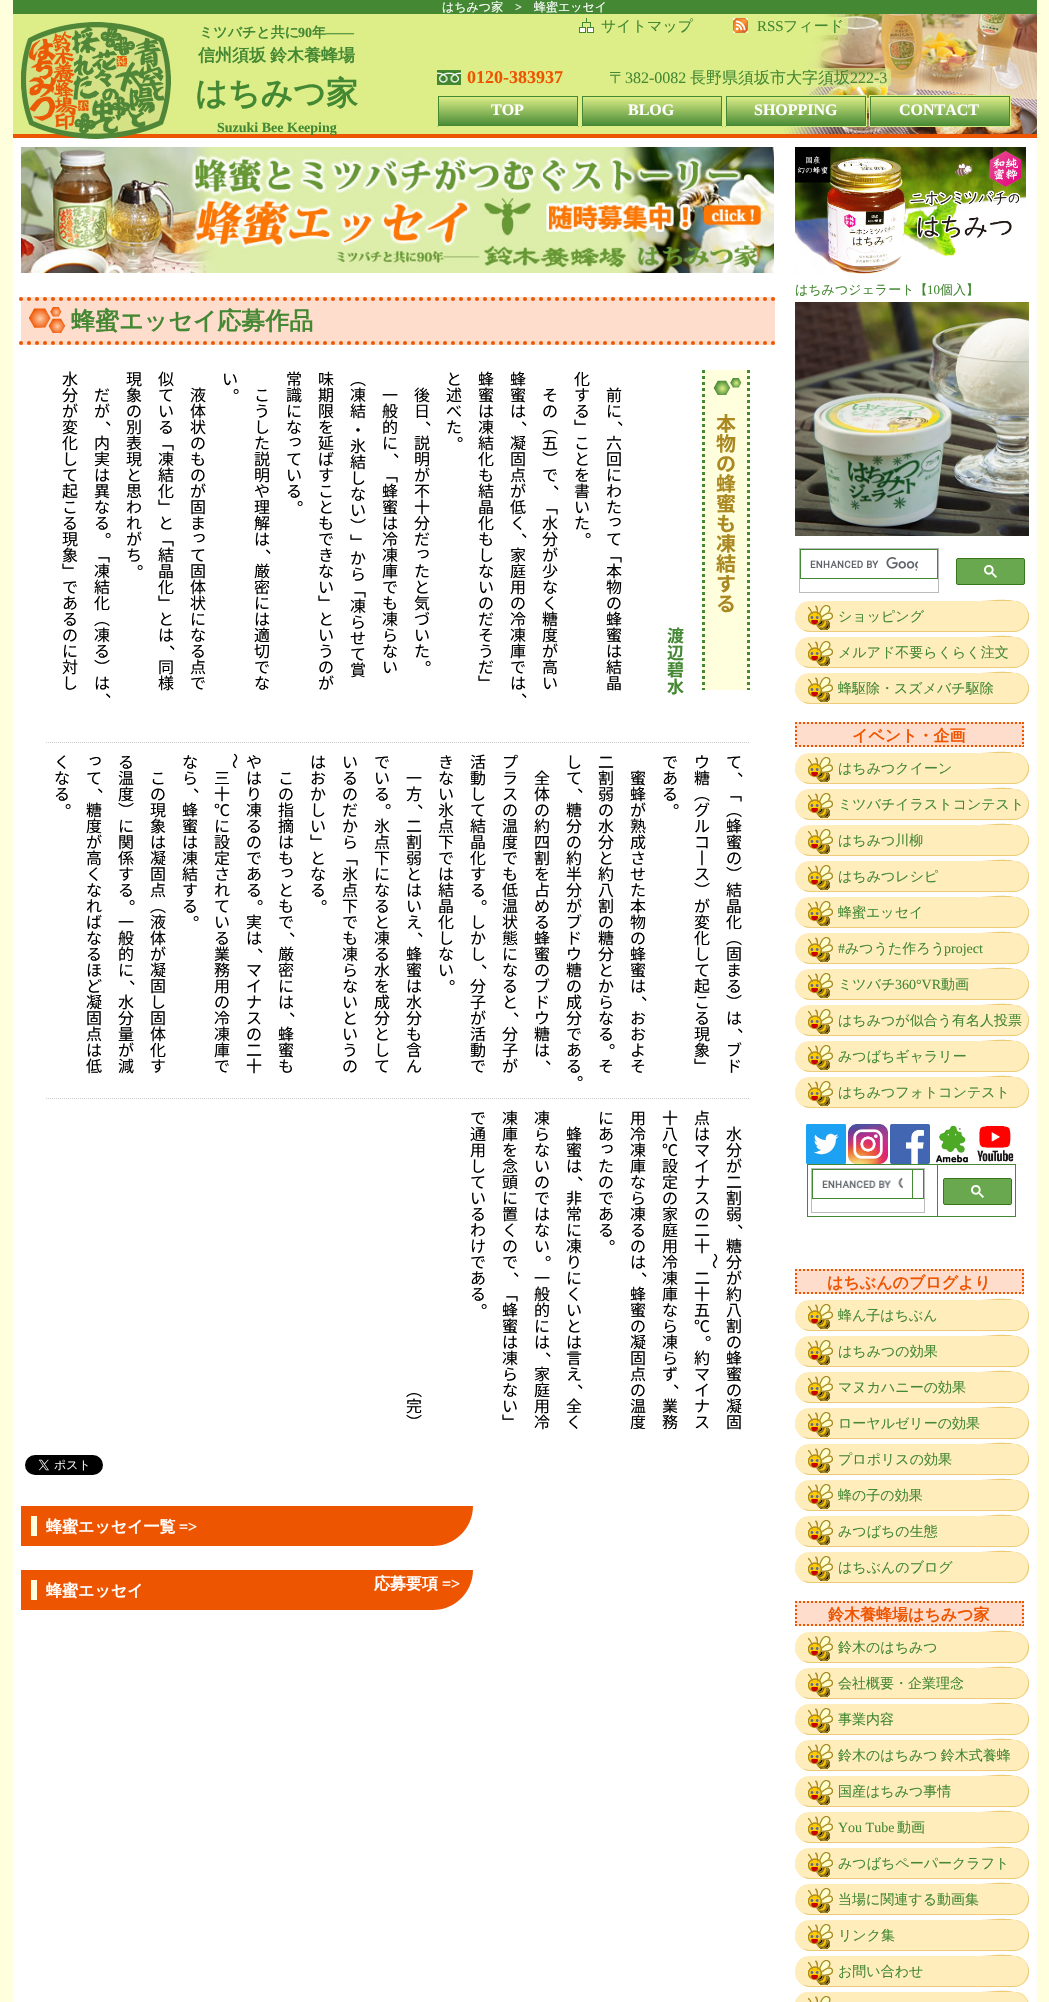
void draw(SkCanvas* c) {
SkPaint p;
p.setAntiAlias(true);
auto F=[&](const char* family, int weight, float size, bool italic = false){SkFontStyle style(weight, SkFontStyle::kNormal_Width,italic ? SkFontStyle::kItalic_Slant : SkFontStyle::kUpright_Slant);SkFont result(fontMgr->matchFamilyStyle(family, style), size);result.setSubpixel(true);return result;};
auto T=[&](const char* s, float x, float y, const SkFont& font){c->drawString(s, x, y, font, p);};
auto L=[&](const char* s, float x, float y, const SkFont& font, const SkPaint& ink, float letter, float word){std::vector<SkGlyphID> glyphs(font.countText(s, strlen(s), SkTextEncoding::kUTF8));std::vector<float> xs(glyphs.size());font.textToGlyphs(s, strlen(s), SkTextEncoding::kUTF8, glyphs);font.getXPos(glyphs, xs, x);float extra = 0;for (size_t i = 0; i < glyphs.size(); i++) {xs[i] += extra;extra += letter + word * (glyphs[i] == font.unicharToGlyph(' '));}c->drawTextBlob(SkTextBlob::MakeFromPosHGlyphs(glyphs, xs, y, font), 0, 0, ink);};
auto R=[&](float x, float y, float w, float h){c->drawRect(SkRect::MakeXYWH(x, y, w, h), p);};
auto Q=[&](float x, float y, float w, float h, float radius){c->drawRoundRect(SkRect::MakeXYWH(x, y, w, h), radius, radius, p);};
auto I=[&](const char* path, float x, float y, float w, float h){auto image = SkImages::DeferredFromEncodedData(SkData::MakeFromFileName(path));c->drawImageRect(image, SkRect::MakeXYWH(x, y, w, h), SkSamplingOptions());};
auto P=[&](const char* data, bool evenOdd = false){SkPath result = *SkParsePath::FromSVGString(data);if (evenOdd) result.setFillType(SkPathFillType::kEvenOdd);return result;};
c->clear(0xffffffdd);
p.setColor(0xffffffff);
R(13,138,1024,1864);
p.setColor(0xffddee88);
R(13,14,770,120);
I("1.png",783,14,254,120);
p.setColor(0xffee5500);
R(13,134,1024,4);
p.setColor(0xff448833);
R(13,0,1024,14);
auto f1 = F("WenQuanYi Zen Hei",500,12);
p.setColor(0xffffffff);
T("はちみつ家",442,11,f1);
auto f2 = F("Liberation Serif",400,12);
T(">",515,11,f2);
T("蜂蜜エッセイ",534,11,f1);
I("2.png",21,22,150,117);
auto f3 = F("WenQuanYi Zen Hei",700,14);
p.setColor(0xff448833);
T("ミツバチと共に",199,37,f3);
auto f4 = F("Liberation Serif",700,14);
T("90",298,37,f4);
T("年",312,37,f3);
T("――",326,37,f4);
auto f5 = F("WenQuanYi Zen Hei",700,17);
L("信州須坂 鈴木養蜂場",198,61,f5,p,0,-1);
auto f6 = F("WenQuanYi Zen Hei",700,32);
T("はちみつ家",195,104,f6);
T("Suzuki Bee Keeping",217,132,f4);
I("3.png",579,18,15,15);
auto f7 = F("WenQuanYi Zen Hei",500,15);
T("サイトマップ",601,31,f7);
I("4.png",733,18,15,15);
p.setColor(0xb3ddee88);
Q(755,17,93,18,4);
auto f8 = F("Liberation Serif",400,15);
p.setColor(0xff448833);
T("RSS",757,31,f8);
T("フィード",783,31,f7);
I("5.png",437,70,24,15);
auto f9 = F("Liberation Serif",700,18);
p.setColor(0xffee5500);
T("0120-383937",467,83,f9);
p.setColor(0xb3ddee88);
Q(607,68,284,19,4);
auto f10 = F("WenQuanYi Zen Hei",500,16);
p.setColor(0xff448833);
T("〒",609,83,f10);
auto f11 = F("Liberation Serif",400,16);
T("382-0082",625,83,f11);
T("長野県須坂市大字須坂",690,83,f10);
T("222-3",850,83,f11);
I("6.png",437,96,142,31);
auto f12 = F("Liberation Serif",700,16);
p.setColor(0xffffffff);
T("TOP",491,115,f12);
I("6.png",581,96,142,31);
T("BLOG",628,115,f12);
I("7.png",725,95,142,32);
T("SHOPPING",754,115,f12);
I("7.png",869,95,142,32);
T("CONTACT",899,115,f12);
I("8.png",21,147,753,126);
p.setColor(0xffffddcc);
R(21,297,754,48);
I("9.png",29,307,36,26);
p.setStroke(true);
p.setStrokeWidth(4);
p.setStrokeCap(SkPaint::kRound_Cap);
p.setColor(0xffee5500);
p.setPathEffect(SkDashPathEffect::Make({{0,8}}, 0));
c->drawPath(P("M21 299h754"),p);
p.setPathEffect(nullptr);
p.setPathEffect(SkDashPathEffect::Make({{0,8}}, 0));
c->drawPath(P("M21 343h754"),p);
p.setPathEffect(nullptr);
auto f13 = F("WenQuanYi Zen Hei",700,24);
p.setStroke(false);
p.setColor(0xff448833);
T("蜂蜜エッセイ応募作品",71,329,f13);
auto f14 = F("Noto Sans CJK JP",400,16);
p.setColor(0xff000000);
T("水",62,385,f14);
T("分",62,401,f14);
T("が",62,417,f14);
T("変",62,433,f14);
T("化",62,449,f14);
T("し",62,465,f14);
T("て",62,481,f14);
T("起",62,497,f14);
T("こ",62,513,f14);
T("る",62,529,f14);
T("現",62,545,f14);
T("象",62,561,f14);
T("﹂",62,577,f14);
T("で",62,593,f14);
T("あ",62,609,f14);
T("る",62,625,f14);
T("の",62,641,f14);
T("に",62,657,f14);
T("対",62,673,f14);
T("し",62,689,f14);
T("だ",94,401,f14);
T("が",94,417,f14);
T("、",105,425,f14);
T("内",94,449,f14);
T("実",94,465,f14);
T("は",94,481,f14);
T("異",94,497,f14);
T("な",94,513,f14);
T("る",94,529,f14);
T("。",105,537,f14);
T("﹁",94,561,f14);
T("凍",94,577,f14);
T("結",94,593,f14);
T("化",94,609,f14);
T("︵",94,625,f14);
T("凍",94,641,f14);
T("る",94,657,f14);
T("︶",94,673,f14);
T("は",94,689,f14);
T("、",105,697,f14);
T("現",126,385,f14);
T("象",126,401,f14);
T("の",126,417,f14);
T("別",126,433,f14);
T("表",126,449,f14);
T("現",126,465,f14);
T("と",126,481,f14);
T("思",126,497,f14);
T("わ",126,513,f14);
T("れ",126,529,f14);
T("が",126,545,f14);
T("ち",126,561,f14);
T("。",137,569,f14);
T("似",158,385,f14);
T("て",158,401,f14);
T("い",158,417,f14);
T("る",158,433,f14);
T("﹁",158,449,f14);
T("凍",158,465,f14);
T("結",158,481,f14);
T("化",158,497,f14);
T("﹂",158,513,f14);
T("と",158,529,f14);
T("﹁",158,545,f14);
T("結",158,561,f14);
T("晶",158,577,f14);
T("化",158,593,f14);
T("﹂",158,609,f14);
T("と",158,625,f14);
T("は",158,641,f14);
T("、",169,649,f14);
T("同",158,673,f14);
T("様",158,689,f14);
T("液",190,401,f14);
T("体",190,417,f14);
T("状",190,433,f14);
T("の",190,449,f14);
T("も",190,465,f14);
T("の",190,481,f14);
T("が",190,497,f14);
T("固",190,513,f14);
T("ま",190,529,f14);
T("っ",191,542,f14);
T("て",190,561,f14);
T("固",190,577,f14);
T("体",190,593,f14);
T("状",190,609,f14);
T("に",190,625,f14);
T("な",190,641,f14);
T("る",190,657,f14);
T("点",190,673,f14);
T("で",190,689,f14);
T("い",222,385,f14);
T("。",233,393,f14);
T("こ",254,401,f14);
T("う",254,417,f14);
T("し",254,433,f14);
T("た",254,449,f14);
T("説",254,465,f14);
T("明",254,481,f14);
T("や",254,497,f14);
T("理",254,513,f14);
T("解",254,529,f14);
T("は",254,545,f14);
T("、",265,553,f14);
T("厳",254,577,f14);
T("密",254,593,f14);
T("に",254,609,f14);
T("は",254,625,f14);
T("適",254,641,f14);
T("切",254,657,f14);
T("で",254,673,f14);
T("な",254,689,f14);
T("常",286,385,f14);
T("識",286,401,f14);
T("に",286,417,f14);
T("な",286,433,f14);
T("っ",287,446,f14);
T("て",286,465,f14);
T("い",286,481,f14);
T("る",286,497,f14);
T("。",297,505,f14);
T("味",318,385,f14);
T("期",318,401,f14);
T("限",318,417,f14);
T("を",318,433,f14);
T("延",318,449,f14);
T("ば",318,465,f14);
T("す",318,481,f14);
T("こ",318,497,f14);
T("と",318,513,f14);
T("も",318,529,f14);
T("で",318,545,f14);
T("き",318,561,f14);
T("な",318,577,f14);
T("い",318,593,f14);
T("﹂",318,609,f14);
T("と",318,625,f14);
T("い",318,641,f14);
T("う",318,657,f14);
T("の",318,673,f14);
T("が",318,689,f14);
T("︵",350,385,f14);
T("凍",350,401,f14);
T("結",350,417,f14);
T("・",350,436,f14);
T("氷",350,452,f14);
T("結",350,468,f14);
T("し",350,484,f14);
T("な",350,500,f14);
T("い",350,516,f14);
T("︶",350,532,f14);
T("﹂",350,548,f14);
T("か",350,564,f14);
T("ら",350,580,f14);
T("﹁",350,596,f14);
T("凍",350,612,f14);
T("ら",350,628,f14);
T("せ",350,644,f14);
T("て",350,660,f14);
T("賞",350,676,f14);
T("一",382,401,f14);
T("般",382,417,f14);
T("的",382,433,f14);
T("に",382,449,f14);
T("、",393,457,f14);
T("﹁",382,481,f14);
T("蜂",382,497,f14);
T("蜜",382,513,f14);
T("は",382,529,f14);
T("冷",382,545,f14);
T("凍",382,561,f14);
T("庫",382,577,f14);
T("で",382,593,f14);
T("も",382,609,f14);
T("凍",382,625,f14);
T("ら",382,641,f14);
T("な",382,657,f14);
T("い",382,673,f14);
T("後",414,401,f14);
T("日",414,417,f14);
T("、",425,425,f14);
T("説",414,449,f14);
T("明",414,465,f14);
T("が",414,481,f14);
T("不",414,497,f14);
T("十",414,513,f14);
T("分",414,529,f14);
T("だ",414,545,f14);
T("っ",415,558,f14);
T("た",414,577,f14);
T("と",414,593,f14);
T("気",414,609,f14);
T("づ",414,625,f14);
T("い",414,641,f14);
T("た",414,657,f14);
T("。",425,665,f14);
T("と",446,385,f14);
T("述",446,401,f14);
T("べ",446,417,f14);
T("た",446,433,f14);
T("。",457,441,f14);
T("蜂",478,385,f14);
T("蜜",478,401,f14);
T("は",478,417,f14);
T("凍",478,433,f14);
T("結",478,449,f14);
T("化",478,465,f14);
T("も",478,481,f14);
T("結",478,497,f14);
T("晶",478,513,f14);
T("化",478,529,f14);
T("も",478,545,f14);
T("し",478,561,f14);
T("な",478,577,f14);
T("い",478,593,f14);
T("の",478,609,f14);
T("だ",478,625,f14);
T("そ",478,641,f14);
T("う",478,657,f14);
T("だ",478,673,f14);
T("﹂",478,689,f14);
T("蜂",510,385,f14);
T("蜜",510,401,f14);
T("は",510,417,f14);
T("、",521,425,f14);
T("凝",510,449,f14);
T("固",510,465,f14);
T("点",510,481,f14);
T("が",510,497,f14);
T("低",510,513,f14);
T("く",510,529,f14);
T("、",521,537,f14);
T("家",510,561,f14);
T("庭",510,577,f14);
T("用",510,593,f14);
T("の",510,609,f14);
T("冷",510,625,f14);
T("凍",510,641,f14);
T("庫",510,657,f14);
T("で",510,673,f14);
T("は",510,689,f14);
T("、",521,697,f14);
T("そ",542,401,f14);
T("の",542,417,f14);
T("︵",542,433,f14);
T("五",542,449,f14);
T("︶",542,465,f14);
T("で",542,481,f14);
T("、",553,489,f14);
T("﹁",542,513,f14);
T("水",542,529,f14);
T("分",542,545,f14);
T("が",542,561,f14);
T("少",542,577,f14);
T("な",542,593,f14);
T("く",542,609,f14);
T("糖",542,625,f14);
T("度",542,641,f14);
T("が",542,657,f14);
T("高",542,673,f14);
T("い",542,689,f14);
T("化",574,385,f14);
T("す",574,401,f14);
T("る",574,417,f14);
T("﹂",574,433,f14);
T("こ",574,449,f14);
T("と",574,465,f14);
T("を",574,481,f14);
T("書",574,497,f14);
T("い",574,513,f14);
T("た",574,529,f14);
T("。",585,537,f14);
T("前",606,401,f14);
T("に",606,417,f14);
T("、",617,425,f14);
T("六",606,449,f14);
T("回",606,465,f14);
T("に",606,481,f14);
T("わ",606,497,f14);
T("た",606,513,f14);
T("っ",607,526,f14);
T("て",606,545,f14);
T("﹁",606,561,f14);
T("本",606,577,f14);
T("物",606,593,f14);
T("の",606,609,f14);
T("蜂",606,625,f14);
T("蜜",606,641,f14);
T("は",606,657,f14);
T("結",606,673,f14);
T("晶",606,689,f14);
p.setColor(0xffffffdd);
R(702,370,48,320);
I("10.png",713,378,29,17);
p.setStroke(true);
p.setStrokeWidth(3);
p.setStrokeCap(SkPaint::kButt_Cap);
p.setColor(0xff448833);
p.setPathEffect(SkDashPathEffect::Make({{3,3}}, 0));
c->drawPath(P("M748.5 370v320"),p);
p.setPathEffect(nullptr);
p.setPathEffect(SkDashPathEffect::Make({{3,3}}, 0));
c->drawPath(P("M703.5 370v320"),p);
p.setPathEffect(nullptr);
auto f15 = F("Noto Sans CJK JP",700,20);
p.setStroke(false);
p.setColor(0xffaa8822);
T("本",716,431,f15);
T("物",716,451,f15);
T("の",716,471,f15);
T("蜂",716,491,f15);
T("蜜",716,511,f15);
T("も",716,531,f15);
T("凍",716,551,f15);
T("結",716,571,f15);
T("す",716,591,f15);
T("る",716,611,f15);
auto f16 = F("Noto Sans CJK JP",700,17);
p.setColor(0xff448833);
T("渡",667,642,f16);
T("辺",667,659,f16);
T("碧",667,676,f16);
T("水",667,693,f16);
p.setStroke(true);
p.setStrokeWidth(1);
p.setColor(0xffcccccc);
p.setPathEffect(SkDashPathEffect::Make({{1,1}}, 0));
c->drawPath(P("M46 742.5h704"),p);
p.setPathEffect(nullptr);
p.setStroke(false);
p.setColor(0xff000000);
T("く",54,768,f14);
T("な",54,784,f14);
T("る",54,800,f14);
T("。",65,808,f14);
T("っ",87,765,f14);
T("て",86,784,f14);
T("、",97,792,f14);
T("糖",86,816,f14);
T("度",86,832,f14);
T("が",86,848,f14);
T("高",86,864,f14);
T("く",86,880,f14);
T("な",86,896,f14);
T("れ",86,912,f14);
T("ば",86,928,f14);
T("な",86,944,f14);
T("る",86,960,f14);
T("ほ",86,976,f14);
T("ど",86,992,f14);
T("凝",86,1008,f14);
T("固",86,1024,f14);
T("点",86,1040,f14);
T("は",86,1056,f14);
T("低",86,1072,f14);
T("る",118,768,f14);
T("温",118,784,f14);
T("度",118,800,f14);
T("︶",118,816,f14);
T("に",118,832,f14);
T("関",118,848,f14);
T("係",118,864,f14);
T("す",118,880,f14);
T("る",118,896,f14);
T("。",129,904,f14);
T("一",118,928,f14);
T("般",118,944,f14);
T("的",118,960,f14);
T("に",118,976,f14);
T("、",129,984,f14);
T("水",118,1008,f14);
T("分",118,1024,f14);
T("量",118,1040,f14);
T("が",118,1056,f14);
T("減",118,1072,f14);
T("こ",150,784,f14);
T("の",150,800,f14);
T("現",150,816,f14);
T("象",150,832,f14);
T("は",150,848,f14);
T("凝",150,864,f14);
T("固",150,880,f14);
T("点",150,896,f14);
T("︵",150,912,f14);
T("液",150,928,f14);
T("体",150,944,f14);
T("が",150,960,f14);
T("凝",150,976,f14);
T("固",150,992,f14);
T("し",150,1008,f14);
T("固",150,1024,f14);
T("体",150,1040,f14);
T("化",150,1056,f14);
T("す",150,1072,f14);
T("な",182,768,f14);
T("ら",182,784,f14);
T("、",193,792,f14);
T("蜂",182,816,f14);
T("蜜",182,832,f14);
T("は",182,848,f14);
T("凍",182,864,f14);
T("結",182,880,f14);
T("す",182,896,f14);
T("る",182,912,f14);
T("。",193,920,f14);
c->save();
c->rotate(90,229,753);
T("～",229,753,f14);
c->restore();
T("三",214,784,f14);
T("十",214,800,f14);
T("℃",214,816,f14);
T("に",214,832,f14);
T("設",214,848,f14);
T("定",214,864,f14);
T("さ",214,880,f14);
T("れ",214,896,f14);
T("て",214,912,f14);
T("い",214,928,f14);
T("る",214,944,f14);
T("業",214,960,f14);
T("務",214,976,f14);
T("用",214,992,f14);
T("の",214,1008,f14);
T("冷",214,1024,f14);
T("凍",214,1040,f14);
T("庫",214,1056,f14);
T("で",214,1072,f14);
T("や",246,768,f14);
T("は",246,784,f14);
T("り",246,800,f14);
T("凍",246,816,f14);
T("る",246,832,f14);
T("の",246,848,f14);
T("で",246,864,f14);
T("あ",246,880,f14);
T("る",246,896,f14);
T("。",257,904,f14);
T("実",246,928,f14);
T("は",246,944,f14);
T("、",257,952,f14);
T("マ",246,976,f14);
T("イ",246,992,f14);
T("ナ",246,1008,f14);
T("ス",246,1024,f14);
T("の",246,1040,f14);
T("二",246,1056,f14);
T("十",246,1072,f14);
T("こ",278,784,f14);
T("の",278,800,f14);
T("指",278,816,f14);
T("摘",278,832,f14);
T("は",278,848,f14);
T("も",278,864,f14);
T("っ",279,877,f14);
T("と",278,896,f14);
T("も",278,912,f14);
T("で",278,928,f14);
T("、",289,936,f14);
T("厳",278,960,f14);
T("密",278,976,f14);
T("に",278,992,f14);
T("は",278,1008,f14);
T("、",289,1016,f14);
T("蜂",278,1040,f14);
T("蜜",278,1056,f14);
T("も",278,1072,f14);
T("は",310,768,f14);
T("お",310,784,f14);
T("か",310,800,f14);
T("し",310,816,f14);
T("い",310,832,f14);
T("﹂",310,848,f14);
T("と",310,864,f14);
T("な",310,880,f14);
T("る",310,896,f14);
T("。",321,904,f14);
T("い",342,768,f14);
T("る",342,784,f14);
T("の",342,800,f14);
T("だ",342,816,f14);
T("か",342,832,f14);
T("ら",342,848,f14);
T("﹁",342,864,f14);
T("氷",342,880,f14);
T("点",342,896,f14);
T("下",342,912,f14);
T("で",342,928,f14);
T("も",342,944,f14);
T("凍",342,960,f14);
T("ら",342,976,f14);
T("な",342,992,f14);
T("い",342,1008,f14);
T("と",342,1024,f14);
T("い",342,1040,f14);
T("う",342,1056,f14);
T("の",342,1072,f14);
T("で",374,768,f14);
T("い",374,784,f14);
T("る",374,800,f14);
T("。",385,808,f14);
T("氷",374,832,f14);
T("点",374,848,f14);
T("下",374,864,f14);
T("に",374,880,f14);
T("な",374,896,f14);
T("る",374,912,f14);
T("と",374,928,f14);
T("凍",374,944,f14);
T("る",374,960,f14);
T("水",374,976,f14);
T("を",374,992,f14);
T("成",374,1008,f14);
T("分",374,1024,f14);
T("と",374,1040,f14);
T("し",374,1056,f14);
T("て",374,1072,f14);
T("一",406,784,f14);
T("方",406,800,f14);
T("、",417,808,f14);
T("二",406,832,f14);
T("割",406,848,f14);
T("弱",406,864,f14);
T("と",406,880,f14);
T("は",406,896,f14);
T("い",406,912,f14);
T("え",406,928,f14);
T("、",417,936,f14);
T("蜂",406,960,f14);
T("蜜",406,976,f14);
T("は",406,992,f14);
T("水",406,1008,f14);
T("分",406,1024,f14);
T("も",406,1040,f14);
T("含",406,1056,f14);
T("ん",406,1072,f14);
T("き",438,768,f14);
T("な",438,784,f14);
T("い",438,800,f14);
T("氷",438,816,f14);
T("点",438,832,f14);
T("下",438,848,f14);
T("で",438,864,f14);
T("は",438,880,f14);
T("結",438,896,f14);
T("晶",438,912,f14);
T("化",438,928,f14);
T("し",438,944,f14);
T("な",438,960,f14);
T("い",438,976,f14);
T("。",449,984,f14);
T("活",470,768,f14);
T("動",470,784,f14);
T("し",470,800,f14);
T("て",470,816,f14);
T("結",470,832,f14);
T("晶",470,848,f14);
T("化",470,864,f14);
T("す",470,880,f14);
T("る",470,896,f14);
T("。",481,904,f14);
T("し",470,928,f14);
T("か",470,944,f14);
T("し",470,960,f14);
T("、",481,968,f14);
T("分",470,992,f14);
T("子",470,1008,f14);
T("が",470,1024,f14);
T("活",470,1040,f14);
T("動",470,1056,f14);
T("で",470,1072,f14);
T("プ",502,768,f14);
T("ラ",502,784,f14);
T("ス",502,800,f14);
T("の",502,816,f14);
T("温",502,832,f14);
T("度",502,848,f14);
T("で",502,864,f14);
T("も",502,880,f14);
T("低",502,896,f14);
T("温",502,912,f14);
T("状",502,928,f14);
T("態",502,944,f14);
T("に",502,960,f14);
T("な",502,976,f14);
T("る",502,992,f14);
T("と",502,1008,f14);
T("、",513,1016,f14);
T("分",502,1040,f14);
T("子",502,1056,f14);
T("が",502,1072,f14);
T("全",534,784,f14);
T("体",534,800,f14);
T("の",534,816,f14);
T("約",534,832,f14);
T("四",534,848,f14);
T("割",534,864,f14);
T("を",534,880,f14);
T("占",534,896,f14);
T("め",534,912,f14);
T("る",534,928,f14);
T("蜂",534,944,f14);
T("蜜",534,960,f14);
T("の",534,976,f14);
T("ブ",534,992,f14);
T("ド",534,1008,f14);
T("ウ",534,1024,f14);
T("糖",534,1040,f14);
T("は",534,1056,f14);
T("、",545,1064,f14);
T("し",566,768,f14);
T("て",566,784,f14);
T("、",577,792,f14);
T("糖",566,816,f14);
T("分",566,832,f14);
T("の",566,848,f14);
T("約",566,864,f14);
T("半",566,880,f14);
T("分",566,896,f14);
T("が",566,912,f14);
T("ブ",566,928,f14);
T("ド",566,944,f14);
T("ウ",566,960,f14);
T("糖",566,976,f14);
T("の",566,992,f14);
T("成",566,1008,f14);
T("分",566,1024,f14);
T("で",566,1040,f14);
T("あ",566,1056,f14);
T("る",566,1072,f14);
T("。",577,1080,f14);
T("二",598,768,f14);
T("割",598,784,f14);
T("弱",598,800,f14);
T("の",598,816,f14);
T("水",598,832,f14);
T("分",598,848,f14);
T("と",598,864,f14);
T("約",598,880,f14);
T("八",598,896,f14);
T("割",598,912,f14);
T("の",598,928,f14);
T("糖",598,944,f14);
T("分",598,960,f14);
T("と",598,976,f14);
T("か",598,992,f14);
T("ら",598,1008,f14);
T("な",598,1024,f14);
T("る",598,1040,f14);
T("。",609,1048,f14);
T("そ",598,1072,f14);
T("蜜",630,784,f14);
T("蜂",630,800,f14);
T("が",630,816,f14);
T("熟",630,832,f14);
T("成",630,848,f14);
T("さ",630,864,f14);
T("せ",630,880,f14);
T("た",630,896,f14);
T("本",630,912,f14);
T("物",630,928,f14);
T("の",630,944,f14);
T("蜂",630,960,f14);
T("蜜",630,976,f14);
T("は",630,992,f14);
T("、",641,1000,f14);
T("お",630,1024,f14);
T("お",630,1040,f14);
T("よ",630,1056,f14);
T("そ",630,1072,f14);
T("で",662,768,f14);
T("あ",662,784,f14);
T("る",662,800,f14);
T("。",673,808,f14);
T("ウ",694,768,f14);
T("糖",694,784,f14);
T("︵",694,800,f14);
T("グ",694,816,f14);
T("ル",694,832,f14);
T("コ",694,848,f14);
T("丨",694,864,f14);
T("ス",694,880,f14);
T("︶",694,896,f14);
T("が",694,912,f14);
T("変",694,928,f14);
T("化",694,944,f14);
T("し",694,960,f14);
T("て",694,976,f14);
T("起",694,992,f14);
T("こ",694,1008,f14);
T("る",694,1024,f14);
T("現",694,1040,f14);
T("象",694,1056,f14);
T("﹂",694,1072,f14);
T("て",726,768,f14);
T("、",737,776,f14);
T("﹁",726,800,f14);
T("︵",726,816,f14);
T("蜂",726,832,f14);
T("蜜",726,848,f14);
T("の",726,864,f14);
T("︶",726,880,f14);
T("結",726,896,f14);
T("晶",726,912,f14);
T("化",726,928,f14);
T("︵",726,944,f14);
T("固",726,960,f14);
T("ま",726,976,f14);
T("る",726,992,f14);
T("︶",726,1008,f14);
T("は",726,1024,f14);
T("、",737,1032,f14);
T("ブ",726,1056,f14);
T("ド",726,1072,f14);
p.setStroke(true);
p.setColor(0xffcccccc);
p.setPathEffect(SkDashPathEffect::Make({{1,1}}, 0));
c->drawPath(P("M46 1098.5h704"),p);
p.setPathEffect(nullptr);
p.setStroke(false);
p.setColor(0xff000000);
T("︵",406,1396,f14);
T("完",406,1412,f14);
T("︶",406,1428,f14);
T("で",470,1124,f14);
T("通",470,1140,f14);
T("用",470,1156,f14);
T("し",470,1172,f14);
T("て",470,1188,f14);
T("い",470,1204,f14);
T("る",470,1220,f14);
T("わ",470,1236,f14);
T("け",470,1252,f14);
T("で",470,1268,f14);
T("あ",470,1284,f14);
T("る",470,1300,f14);
T("。",481,1308,f14);
T("凍",502,1124,f14);
T("庫",502,1140,f14);
T("を",502,1156,f14);
T("念",502,1172,f14);
T("頭",502,1188,f14);
T("に",502,1204,f14);
T("置",502,1220,f14);
T("く",502,1236,f14);
T("の",502,1252,f14);
T("で",502,1268,f14);
T("、",513,1276,f14);
T("﹁",502,1300,f14);
T("蜂",502,1316,f14);
T("蜜",502,1332,f14);
T("は",502,1348,f14);
T("凍",502,1364,f14);
T("ら",502,1380,f14);
T("な",502,1396,f14);
T("い",502,1412,f14);
T("﹂",502,1428,f14);
T("凍",534,1124,f14);
T("ら",534,1140,f14);
T("な",534,1156,f14);
T("い",534,1172,f14);
T("の",534,1188,f14);
T("で",534,1204,f14);
T("は",534,1220,f14);
T("な",534,1236,f14);
T("い",534,1252,f14);
T("。",545,1260,f14);
T("一",534,1284,f14);
T("般",534,1300,f14);
T("的",534,1316,f14);
T("に",534,1332,f14);
T("は",534,1348,f14);
T("、",545,1356,f14);
T("家",534,1380,f14);
T("庭",534,1396,f14);
T("用",534,1412,f14);
T("冷",534,1428,f14);
T("蜂",566,1140,f14);
T("蜜",566,1156,f14);
T("は",566,1172,f14);
T("、",577,1180,f14);
T("非",566,1204,f14);
T("常",566,1220,f14);
T("に",566,1236,f14);
T("凍",566,1252,f14);
T("り",566,1268,f14);
T("に",566,1284,f14);
T("く",566,1300,f14);
T("い",566,1316,f14);
T("と",566,1332,f14);
T("は",566,1348,f14);
T("言",566,1364,f14);
T("え",566,1380,f14);
T("、",577,1388,f14);
T("全",566,1412,f14);
T("く",566,1428,f14);
T("に",598,1124,f14);
T("あ",598,1140,f14);
T("っ",599,1153,f14);
T("た",598,1172,f14);
T("の",598,1188,f14);
T("で",598,1204,f14);
T("あ",598,1220,f14);
T("る",598,1236,f14);
T("。",609,1244,f14);
T("用",630,1124,f14);
T("冷",630,1140,f14);
T("凍",630,1156,f14);
T("庫",630,1172,f14);
T("な",630,1188,f14);
T("ら",630,1204,f14);
T("凍",630,1220,f14);
T("る",630,1236,f14);
T("の",630,1252,f14);
T("は",630,1268,f14);
T("、",641,1276,f14);
T("蜂",630,1300,f14);
T("蜜",630,1316,f14);
T("の",630,1332,f14);
T("凝",630,1348,f14);
T("固",630,1364,f14);
T("点",630,1380,f14);
T("の",630,1396,f14);
T("温",630,1412,f14);
c->save();
c->clipRect(SkRect::MakeXYWH(46,1109,704,320));
T("度",630,1428,f14);
c->restore();
T("十",662,1124,f14);
T("八",662,1140,f14);
T("℃",662,1156,f14);
T("設",662,1172,f14);
T("定",662,1188,f14);
T("の",662,1204,f14);
T("家",662,1220,f14);
T("庭",662,1236,f14);
T("用",662,1252,f14);
T("冷",662,1268,f14);
T("凍",662,1284,f14);
T("庫",662,1300,f14);
T("な",662,1316,f14);
T("ら",662,1332,f14);
T("凍",662,1348,f14);
T("ら",662,1364,f14);
T("ず",662,1380,f14);
T("、",673,1388,f14);
T("業",662,1412,f14);
c->save();
c->clipRect(SkRect::MakeXYWH(46,1109,704,320));
T("務",662,1428,f14);
c->restore();
T("点",694,1124,f14);
T("は",694,1140,f14);
T("マ",694,1156,f14);
T("イ",694,1172,f14);
T("ナ",694,1188,f14);
T("ス",694,1204,f14);
T("の",694,1220,f14);
T("二",694,1236,f14);
T("十",694,1252,f14);
c->save();
c->rotate(90,709,1253);
T("～",709,1253,f14);
c->restore();
T("二",694,1284,f14);
T("十",694,1300,f14);
T("五",694,1316,f14);
T("℃",694,1332,f14);
T("。",705,1340,f14);
T("約",694,1364,f14);
T("マ",694,1380,f14);
T("イ",694,1396,f14);
T("ナ",694,1412,f14);
T("ス",694,1428,f14);
T("水",726,1140,f14);
T("分",726,1156,f14);
T("が",726,1172,f14);
T("二",726,1188,f14);
T("割",726,1204,f14);
T("弱",726,1220,f14);
T("、",737,1228,f14);
T("糖",726,1252,f14);
T("分",726,1268,f14);
T("が",726,1284,f14);
T("約",726,1300,f14);
T("八",726,1316,f14);
T("割",726,1332,f14);
T("の",726,1348,f14);
T("蜂",726,1364,f14);
T("蜜",726,1380,f14);
T("の",726,1396,f14);
T("凝",726,1412,f14);
T("固",726,1428,f14);
I("11.png",25,1455,78,20);
p.setColor(0xffee5500);
c->drawPath(P("M21 1506h452c0 22-18 40-40 40h-412z"),p);
p.setColor(0xffffffdd);
R(31,1516,6,20);
auto f17 = F("WenQuanYi Zen Hei",700,16);
p.setColor(0xffffffff);
T("蜂蜜エッセイ一覧",46,1532,f17);
T("=>",179,1532,f12);
p.setColor(0xffee5500);
c->drawPath(P("M21 1570h452c0 22-18 40-40 40h-412z"),p);
p.setColor(0xffffffdd);
R(31,1580,6,20);
p.setColor(0xffffffff);
T("蜂蜜エッセイ",46,1596,f17);
T("応募要項",374,1589,f17);
T("=>",442,1589,f12);
I("12.png",795,147,231,127);
auto f18 = F("WenQuanYi Zen Hei",500,13);
p.setColor(0xff448833);
T("はちみつジェラート【",795,294,f18);
auto f19 = F("Liberation Serif",400,13);
T("10",927,294,f19);
T("個入】",940,294,f18);
I("13.png",795,302,234,234);
p.setStroke(true);
p.setColor(0xffbbbbbb);
c->drawRect(SkRect::MakeXYWH(799.5,548.5,139,44),p);
p.setStroke(false);
p.setColor(0xff448833);
R(800,549,138,1);
R(937,549,1,30);
R(800,578,138,1);
R(800,549,1,30);
I("14.png",810,557,108,14);
p.setColor(0xff6aa84f);
c->drawRoundRect(SkRect::MakeXYWH(956.5,558.5,68,26),1.5,1.5,p);
p.setStroke(true);
p.setColor(0xff38761d);
c->drawRoundRect(SkRect::MakeXYWH(956.5,558.5,68,26),1.5,1.5,p);
I("15.png",984,565,13,13);
p.setStroke(false);
p.setColor(0xffffeebb);
Q(795,601,234,31,15);
I("16.png",808,605,25,25);
p.setColor(0xffeecc77);
c->drawPath(P("M810 601h204c8 0 15 7 15 15v1c0 8-7 15-15 15h-204c-8 0-15-7-15-15v-1c0-8 7-15 15-15zm0 0h170c10 0 50-8 48 16c-1 8-6 14-14 14h-204l-6-1c-15-6-10-29 6-29z",true),p);
auto f20 = F("WenQuanYi Zen Hei",500,14);
p.setColor(0xff448833);
T("ショッピング",838,621,f20);
p.setColor(0xffffeebb);
Q(795,637,234,31,15);
I("16.png",808,641,25,25);
p.setColor(0xffeecc77);
c->drawPath(P("M810 637h204c8 0 15 7 15 15v1c0 8-7 15-15 15h-204c-8 0-15-7-15-15v-1c0-8 7-15 15-15zm0 0h170c10 0 50-8 48 16c-1 8-6 14-14 14h-204l-6-1c-15-6-10-29 6-29z",true),p);
p.setColor(0xff448833);
T("メルアド不要らくらく注文",838,657,f20);
p.setColor(0xffffeebb);
Q(795,673,234,31,15);
I("16.png",808,677,25,25);
p.setColor(0xffeecc77);
c->drawPath(P("M810 673h204c8 0 15 7 15 15v1c0 8-7 15-15 15h-204c-8 0-15-7-15-15v-1c0-8 7-15 15-15zm0 0h170c10 0 50-8 48 16c-1 8-6 14-14 14h-204l-6-1c-15-6-10-29 6-29z",true),p);
p.setColor(0xff448833);
T("蜂駆除・スズメバチ駆除",838,693,f20);
p.setColor(0xffffddcc);
R(795,722,229,25);
p.setStroke(true);
p.setStrokeWidth(2);
p.setColor(0xffee5500);
p.setPathEffect(SkDashPathEffect::Make({{2,2}}, 0));
c->drawPath(P("M795 723h229"),p);
p.setPathEffect(nullptr);
p.setPathEffect(SkDashPathEffect::Make({{2,2}}, 0));
c->drawPath(P("M1023 722v25"),p);
p.setPathEffect(nullptr);
p.setPathEffect(SkDashPathEffect::Make({{2,2}}, 0));
c->drawPath(P("M795 746h229"),p);
p.setPathEffect(nullptr);
p.setPathEffect(SkDashPathEffect::Make({{2,2}}, 0));
c->drawPath(P("M796 722v25"),p);
p.setPathEffect(nullptr);
p.setStroke(false);
T("イベント・企画",852,741,f17);
p.setColor(0xffffeebb);
Q(795,753,234,31,15);
I("16.png",808,757,25,25);
p.setColor(0xffeecc77);
c->drawPath(P("M810 753h204c8 0 15 7 15 15v1c0 8-7 15-15 15h-204c-8 0-15-7-15-15v-1c0-8 7-15 15-15zm0 0h170c10 0 50-8 48 16c-1 8-6 14-14 14h-204l-6-1c-15-6-10-29 6-29z",true),p);
p.setColor(0xff448833);
T("はちみつクイーン",838,773,f20);
p.setColor(0xffffeebb);
Q(795,789,234,31,15);
I("16.png",808,793,25,25);
p.setColor(0xffeecc77);
c->drawPath(P("M810 789h204c8 0 15 7 15 15v1c0 8-7 15-15 15h-204c-8 0-15-7-15-15v-1c0-8 7-15 15-15zm0 0h170c10 0 50-8 48 16c-1 8-6 14-14 14h-204l-6-1c-15-6-10-29 6-29z",true),p);
p.setColor(0xff448833);
T("ミツバチイラストコンテスト",838,809,f20);
p.setColor(0xffffeebb);
Q(795,825,234,31,15);
I("16.png",808,829,25,25);
p.setColor(0xffeecc77);
c->drawPath(P("M810 825h204c8 0 15 7 15 15v1c0 8-7 15-15 15h-204c-8 0-15-7-15-15v-1c0-8 7-15 15-15zm0 0h170c10 0 50-8 48 16c-1 8-6 14-14 14h-204l-6-1c-15-6-10-29 6-29z",true),p);
p.setColor(0xff448833);
T("はちみつ川柳",838,845,f20);
p.setColor(0xffffeebb);
Q(795,861,234,31,15);
I("16.png",808,865,25,25);
p.setColor(0xffeecc77);
c->drawPath(P("M810 861h204c8 0 15 7 15 15v1c0 8-7 15-15 15h-204c-8 0-15-7-15-15v-1c0-8 7-15 15-15zm0 0h170c10 0 50-8 48 16c-1 8-6 14-14 14h-204l-6-1c-15-6-10-29 6-29z",true),p);
p.setColor(0xff448833);
T("はちみつレシピ",838,881,f20);
p.setColor(0xffffeebb);
Q(795,897,234,31,15);
I("16.png",808,901,25,25);
p.setColor(0xffeecc77);
c->drawPath(P("M810 897h204c8 0 15 7 15 15v1c0 8-7 15-15 15h-204c-8 0-15-7-15-15v-1c0-8 7-15 15-15zm0 0h170c10 0 50-8 48 16c-1 8-6 14-14 14h-204l-6-1c-15-6-10-29 6-29z",true),p);
p.setColor(0xff448833);
T("蜂蜜エッセイ",838,917,f20);
p.setColor(0xffffeebb);
Q(795,933,234,31,15);
I("16.png",808,937,25,25);
p.setColor(0xffeecc77);
c->drawPath(P("M810 933h204c8 0 15 7 15 15v1c0 8-7 15-15 15h-204c-8 0-15-7-15-15v-1c0-8 7-15 15-15zm0 0h170c10 0 50-8 48 16c-1 8-6 14-14 14h-204l-6-1c-15-6-10-29 6-29z",true),p);
auto f21 = F("Liberation Serif",400,14);
p.setColor(0xff448833);
T("#",838,953,f21);
T("みつうた作ろう",845,953,f20);
T("project",944,953,f21);
p.setColor(0xffffeebb);
Q(795,969,234,31,15);
I("16.png",808,973,25,25);
p.setColor(0xffeecc77);
c->drawPath(P("M810 969h204c8 0 15 7 15 15v1c0 8-7 15-15 15h-204c-8 0-15-7-15-15v-1c0-8 7-15 15-15zm0 0h170c10 0 50-8 48 16c-1 8-6 14-14 14h-204l-6-1c-15-6-10-29 6-29z",true),p);
p.setColor(0xff448833);
T("ミツバチ",838,989,f20);
T("360°VR",895,989,f21);
T("動画",941,989,f20);
p.setColor(0xffffeebb);
Q(795,1005,234,31,15);
I("16.png",808,1009,25,25);
p.setColor(0xffeecc77);
c->drawPath(P("M810 1005h204c8 0 15 7 15 15v1c0 8-7 15-15 15h-204c-8 0-15-7-15-15v-1c0-8 7-15 15-15zm0 0h170c10 0 50-8 48 16c-1 8-6 14-14 14h-204l-6-1c-15-6-10-29 6-29z",true),p);
p.setColor(0xff448833);
T("はちみつが似合う有名人投票",838,1025,f20);
p.setColor(0xffffeebb);
Q(795,1041,234,31,15);
I("16.png",808,1045,25,25);
p.setColor(0xffeecc77);
c->drawPath(P("M810 1041h204c8 0 15 7 15 15v1c0 8-7 15-15 15h-204c-8 0-15-7-15-15v-1c0-8 7-15 15-15zm0 0h170c10 0 50-8 48 16c-1 8-6 14-14 14h-204l-6-1c-15-6-10-29 6-29z",true),p);
p.setColor(0xff448833);
T("みつばちギャラリー",838,1061,f20);
p.setColor(0xffffeebb);
Q(795,1077,234,31,15);
I("16.png",808,1081,25,25);
p.setColor(0xffeecc77);
c->drawPath(P("M810 1077h204c8 0 15 7 15 15v1c0 8-7 15-15 15h-204c-8 0-15-7-15-15v-1c0-8 7-15 15-15zm0 0h170c10 0 50-8 48 16c-1 8-6 14-14 14h-204l-6-1c-15-6-10-29 6-29z",true),p);
p.setColor(0xff448833);
T("はちみつフォトコンテスト",838,1097,f20);
I("17.png",806,1124,40,40);
I("18.png",848,1124,40,40);
I("19.png",890,1124,40,40);
I("20.png",936,1125,32,38);
I("21.png",977,1126,37,36);
R(937,1164,79,1);
R(1015,1164,1,53);
R(937,1216,79,1);
R(937,1164,1,53);
R(807,1164,131,1);
R(807,1216,131,1);
R(807,1164,1,53);
p.setStroke(true);
p.setStrokeWidth(1);
p.setColor(0xffbbbbbb);
c->drawRect(SkRect::MakeXYWH(811.5,1168.5,113,44),p);
p.setStroke(false);
p.setColor(0xff448833);
R(812,1169,112,1);
R(923,1169,1,30);
R(812,1198,112,1);
R(812,1169,1,30);
I("22.png",822,1177,81,12);
R(912,1169,1,30);
p.setColor(0xff6aa84f);
c->drawRoundRect(SkRect::MakeXYWH(943.5,1178.5,68,26),1.5,1.5,p);
p.setStroke(true);
p.setColor(0xff38761d);
c->drawRoundRect(SkRect::MakeXYWH(943.5,1178.5,68,26),1.5,1.5,p);
I("15.png",971,1185,13,13);
p.setStroke(false);
p.setColor(0xffffddcc);
R(795,1269,229,25);
p.setStroke(true);
p.setStrokeWidth(2);
p.setColor(0xffee5500);
p.setPathEffect(SkDashPathEffect::Make({{2,2}}, 0));
c->drawPath(P("M795 1270h229"),p);
p.setPathEffect(nullptr);
p.setPathEffect(SkDashPathEffect::Make({{2,2}}, 0));
c->drawPath(P("M1023 1269v25"),p);
p.setPathEffect(nullptr);
p.setPathEffect(SkDashPathEffect::Make({{2,2}}, 0));
c->drawPath(P("M795 1293h229"),p);
p.setPathEffect(nullptr);
p.setPathEffect(SkDashPathEffect::Make({{2,2}}, 0));
c->drawPath(P("M796 1269v25"),p);
p.setPathEffect(nullptr);
p.setStroke(false);
T("はちぶんのブログより",827,1288,f17);
p.setColor(0xffffeebb);
Q(795,1300,234,31,15);
I("16.png",808,1304,25,25);
p.setColor(0xffeecc77);
c->drawPath(P("M810 1300h204c8 0 15 7 15 15v1c0 8-7 15-15 15h-204c-8 0-15-7-15-15v-1c0-8 7-15 15-15zm0 0h170c10 0 50-8 48 16c-1 8-6 14-14 14h-204l-6-1c-15-6-10-29 6-29z",true),p);
p.setColor(0xff448833);
T("蜂ん子はちぶん",838,1320,f20);
p.setColor(0xffffeebb);
Q(795,1336,234,31,15);
I("16.png",808,1340,25,25);
p.setColor(0xffeecc77);
c->drawPath(P("M810 1336h204c8 0 15 7 15 15v1c0 8-7 15-15 15h-204c-8 0-15-7-15-15v-1c0-8 7-15 15-15zm0 0h170c10 0 50-8 48 16c-1 8-6 14-14 14h-204l-6-1c-15-6-10-29 6-29z",true),p);
p.setColor(0xff448833);
T("はちみつの効果",838,1356,f20);
p.setColor(0xffffeebb);
Q(795,1372,234,31,15);
I("16.png",808,1376,25,25);
p.setColor(0xffeecc77);
c->drawPath(P("M810 1372h204c8 0 15 7 15 15v1c0 8-7 15-15 15h-204c-8 0-15-7-15-15v-1c0-8 7-15 15-15zm0 0h170c10 0 50-8 48 16c-1 8-6 14-14 14h-204l-6-1c-15-6-10-29 6-29z",true),p);
p.setColor(0xff448833);
T("マヌカハニーの効果",838,1392,f20);
p.setColor(0xffffeebb);
Q(795,1408,234,31,15);
I("16.png",808,1412,25,25);
p.setColor(0xffeecc77);
c->drawPath(P("M810 1408h204c8 0 15 7 15 15v1c0 8-7 15-15 15h-204c-8 0-15-7-15-15v-1c0-8 7-15 15-15zm0 0h170c10 0 50-8 48 16c-1 8-6 14-14 14h-204l-6-1c-15-6-10-29 6-29z",true),p);
p.setColor(0xff448833);
T("ローヤルゼリーの効果",838,1428,f20);
p.setColor(0xffffeebb);
Q(795,1444,234,31,15);
I("16.png",808,1448,25,25);
p.setColor(0xffeecc77);
c->drawPath(P("M810 1444h204c8 0 15 7 15 15v1c0 8-7 15-15 15h-204c-8 0-15-7-15-15v-1c0-8 7-15 15-15zm0 0h170c10 0 50-8 48 16c-1 8-6 14-14 14h-204l-6-1c-15-6-10-29 6-29z",true),p);
p.setColor(0xff448833);
T("プロポリスの効果",838,1464,f20);
p.setColor(0xffffeebb);
Q(795,1480,234,31,15);
I("16.png",808,1484,25,25);
p.setColor(0xffeecc77);
c->drawPath(P("M810 1480h204c8 0 15 7 15 15v1c0 8-7 15-15 15h-204c-8 0-15-7-15-15v-1c0-8 7-15 15-15zm0 0h170c10 0 50-8 48 16c-1 8-6 14-14 14h-204l-6-1c-15-6-10-29 6-29z",true),p);
p.setColor(0xff448833);
T("蜂の子の効果",838,1500,f20);
p.setColor(0xffffeebb);
Q(795,1516,234,31,15);
I("16.png",808,1520,25,25);
p.setColor(0xffeecc77);
c->drawPath(P("M810 1516h204c8 0 15 7 15 15v1c0 8-7 15-15 15h-204c-8 0-15-7-15-15v-1c0-8 7-15 15-15zm0 0h170c10 0 50-8 48 16c-1 8-6 14-14 14h-204l-6-1c-15-6-10-29 6-29z",true),p);
p.setColor(0xff448833);
T("みつばちの生態",838,1536,f20);
p.setColor(0xffffeebb);
Q(795,1552,234,31,15);
I("16.png",808,1556,25,25);
p.setColor(0xffeecc77);
c->drawPath(P("M810 1552h204c8 0 15 7 15 15v1c0 8-7 15-15 15h-204c-8 0-15-7-15-15v-1c0-8 7-15 15-15zm0 0h170c10 0 50-8 48 16c-1 8-6 14-14 14h-204l-6-1c-15-6-10-29 6-29z",true),p);
p.setColor(0xff448833);
T("はちぶんのブログ",838,1572,f20);
p.setColor(0xffffddcc);
R(795,1601,229,25);
p.setStroke(true);
p.setColor(0xffee5500);
p.setPathEffect(SkDashPathEffect::Make({{2,2}}, 0));
c->drawPath(P("M795 1602h229"),p);
p.setPathEffect(nullptr);
p.setPathEffect(SkDashPathEffect::Make({{2,2}}, 0));
c->drawPath(P("M1023 1601v25"),p);
p.setPathEffect(nullptr);
p.setPathEffect(SkDashPathEffect::Make({{2,2}}, 0));
c->drawPath(P("M795 1625h229"),p);
p.setPathEffect(nullptr);
p.setPathEffect(SkDashPathEffect::Make({{2,2}}, 0));
c->drawPath(P("M796 1601v25"),p);
p.setPathEffect(nullptr);
p.setStroke(false);
T("鈴木養蜂場はちみつ家",828,1620,f17);
p.setColor(0xffffeebb);
Q(795,1632,234,31,15);
I("16.png",808,1636,25,25);
p.setColor(0xffeecc77);
c->drawPath(P("M810 1632h204c8 0 15 7 15 15v1c0 8-7 15-15 15h-204c-8 0-15-7-15-15v-1c0-8 7-15 15-15zm0 0h170c10 0 50-8 48 16c-1 8-6 14-14 14h-204l-6-1c-15-6-10-29 6-29z",true),p);
p.setColor(0xff448833);
T("鈴木のはちみつ",838,1652,f20);
p.setColor(0xffffeebb);
Q(795,1668,234,31,15);
I("16.png",808,1672,25,25);
p.setColor(0xffeecc77);
c->drawPath(P("M810 1668h204c8 0 15 7 15 15v1c0 8-7 15-15 15h-204c-8 0-15-7-15-15v-1c0-8 7-15 15-15zm0 0h170c10 0 50-8 48 16c-1 8-6 14-14 14h-204l-6-1c-15-6-10-29 6-29z",true),p);
p.setColor(0xff448833);
T("会社概要・企業理念",838,1688,f20);
p.setColor(0xffffeebb);
Q(795,1704,234,31,15);
I("16.png",808,1708,25,25);
p.setColor(0xffeecc77);
c->drawPath(P("M810 1704h204c8 0 15 7 15 15v1c0 8-7 15-15 15h-204c-8 0-15-7-15-15v-1c0-8 7-15 15-15zm0 0h170c10 0 50-8 48 16c-1 8-6 14-14 14h-204l-6-1c-15-6-10-29 6-29z",true),p);
p.setColor(0xff448833);
T("事業内容",838,1724,f20);
p.setColor(0xffffeebb);
Q(795,1740,234,31,15);
I("16.png",808,1744,25,25);
p.setColor(0xffeecc77);
c->drawPath(P("M810 1740h204c8 0 15 7 15 15v1c0 8-7 15-15 15h-204c-8 0-15-7-15-15v-1c0-8 7-15 15-15zm0 0h170c10 0 50-8 48 16c-1 8-6 14-14 14h-204l-6-1c-15-6-10-29 6-29z",true),p);
p.setColor(0xff448833);
L("鈴木のはちみつ 鈴木式養蜂",838,1760,f20,p,0,-1);
p.setColor(0xffffeebb);
Q(795,1776,234,31,15);
I("16.png",808,1780,25,25);
p.setColor(0xffeecc77);
c->drawPath(P("M810 1776h204c8 0 15 7 15 15v1c0 8-7 15-15 15h-204c-8 0-15-7-15-15v-1c0-8 7-15 15-15zm0 0h170c10 0 50-8 48 16c-1 8-6 14-14 14h-204l-6-1c-15-6-10-29 6-29z",true),p);
p.setColor(0xff448833);
T("国産はちみつ事情",838,1796,f20);
p.setColor(0xffffeebb);
Q(795,1812,234,31,15);
I("16.png",808,1816,25,25);
p.setColor(0xffeecc77);
c->drawPath(P("M810 1812h204c8 0 15 7 15 15v1c0 8-7 15-15 15h-204c-8 0-15-7-15-15v-1c0-8 7-15 15-15zm0 0h170c10 0 50-8 48 16c-1 8-6 14-14 14h-204l-6-1c-15-6-10-29 6-29z",true),p);
p.setColor(0xff448833);
T("You Tube",838,1832,f21);
T("動画",897,1832,f20);
p.setColor(0xffffeebb);
Q(795,1848,234,31,15);
I("16.png",808,1852,25,25);
p.setColor(0xffeecc77);
c->drawPath(P("M810 1848h204c8 0 15 7 15 15v1c0 8-7 15-15 15h-204c-8 0-15-7-15-15v-1c0-8 7-15 15-15zm0 0h170c10 0 50-8 48 16c-1 8-6 14-14 14h-204l-6-1c-15-6-10-29 6-29z",true),p);
p.setColor(0xff448833);
T("みつばちペーパークラフト",838,1868,f20);
p.setColor(0xffffeebb);
Q(795,1884,234,31,15);
I("16.png",808,1888,25,25);
p.setColor(0xffeecc77);
c->drawPath(P("M810 1884h204c8 0 15 7 15 15v1c0 8-7 15-15 15h-204c-8 0-15-7-15-15v-1c0-8 7-15 15-15zm0 0h170c10 0 50-8 48 16c-1 8-6 14-14 14h-204l-6-1c-15-6-10-29 6-29z",true),p);
p.setColor(0xff448833);
T("当場に関連する動画集",838,1904,f20);
p.setColor(0xffffeebb);
Q(795,1920,234,31,15);
I("16.png",808,1924,25,25);
p.setColor(0xffeecc77);
c->drawPath(P("M810 1920h204c8 0 15 7 15 15v1c0 8-7 15-15 15h-204c-8 0-15-7-15-15v-1c0-8 7-15 15-15zm0 0h170c10 0 50-8 48 16c-1 8-6 14-14 14h-204l-6-1c-15-6-10-29 6-29z",true),p);
p.setColor(0xff448833);
T("リンク集",838,1940,f20);
p.setColor(0xffffeebb);
Q(795,1956,234,31,15);
I("16.png",808,1960,25,25);
p.setColor(0xffeecc77);
c->drawPath(P("M810 1956h204c8 0 15 7 15 15v1c0 8-7 15-15 15h-204c-8 0-15-7-15-15v-1c0-8 7-15 15-15zm0 0h170c10 0 50-8 48 16c-1 8-6 14-14 14h-204l-6-1c-15-6-10-29 6-29z",true),p);
p.setColor(0xff448833);
T("お問い合わせ",838,1976,f20);
p.setColor(0xffffeebb);
Q(795,1992,234,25,15);
I("23.png",808,1996,23,6);
p.setColor(0xffeecc77);
c->drawPath(P("M810 1992h204c8 0 15 7 15 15v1c0 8-7 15-15 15h-204c-8 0-15-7-15-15v-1c0-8 7-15 15-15zm0 0h170c10 0 50-8 48 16c-1 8-6 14-14 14h-204l-6-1c-15-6-10-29 6-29z",true),p);
}
